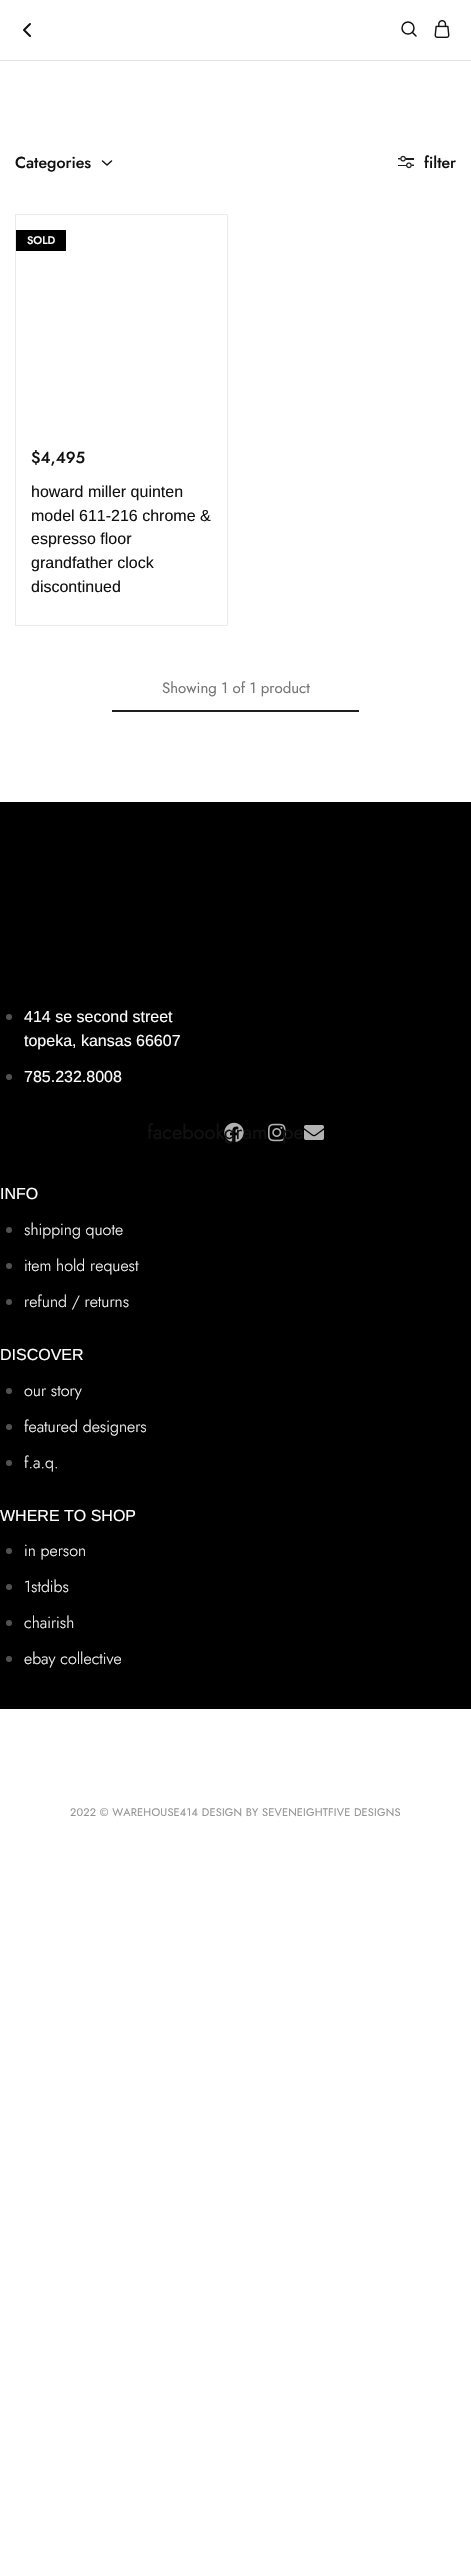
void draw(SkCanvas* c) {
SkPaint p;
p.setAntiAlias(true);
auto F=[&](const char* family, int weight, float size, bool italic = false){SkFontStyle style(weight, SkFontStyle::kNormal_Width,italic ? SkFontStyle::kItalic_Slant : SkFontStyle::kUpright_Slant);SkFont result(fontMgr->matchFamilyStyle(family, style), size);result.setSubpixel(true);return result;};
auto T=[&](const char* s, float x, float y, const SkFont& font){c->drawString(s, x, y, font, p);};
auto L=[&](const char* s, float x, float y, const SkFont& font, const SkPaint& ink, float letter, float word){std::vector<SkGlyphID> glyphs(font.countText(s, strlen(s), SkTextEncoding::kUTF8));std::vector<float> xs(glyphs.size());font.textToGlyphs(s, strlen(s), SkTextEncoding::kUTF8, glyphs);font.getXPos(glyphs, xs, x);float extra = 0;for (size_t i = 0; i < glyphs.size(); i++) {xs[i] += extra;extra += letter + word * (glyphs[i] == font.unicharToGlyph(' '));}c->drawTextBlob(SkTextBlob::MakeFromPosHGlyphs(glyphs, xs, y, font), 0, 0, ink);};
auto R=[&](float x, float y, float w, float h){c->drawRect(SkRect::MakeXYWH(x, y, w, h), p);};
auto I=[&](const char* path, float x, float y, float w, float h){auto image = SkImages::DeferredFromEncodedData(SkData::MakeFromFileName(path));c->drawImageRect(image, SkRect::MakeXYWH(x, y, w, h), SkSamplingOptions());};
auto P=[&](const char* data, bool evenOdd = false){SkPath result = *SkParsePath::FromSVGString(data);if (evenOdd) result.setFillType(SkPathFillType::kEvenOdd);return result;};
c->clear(0xffffffff);
p.setColor(0xffe2e2e2);
R(0,60,471,1);
p.setStroke(true);
p.setStrokeWidth(2);
p.setStrokeCap(SkPaint::kRound_Cap);
p.setStrokeJoin(SkPaint::kRound_Join);
p.setColor(0xff111111);
c->drawPath(P("M30 36l-6-6l6-6"),p);
p.setStrokeWidth(1.5);
p.setStrokeCap(SkPaint::kButt_Cap);
p.setStrokeJoin(SkPaint::kMiter_Join);
c->drawCircle(408,28,6,p);
p.setStrokeCap(SkPaint::kRound_Cap);
p.setStrokeJoin(SkPaint::kRound_Join);
c->drawPath(P("M416 36l-3.5-3.5"),p);
I("1.png",434,20,16,18);
auto f1 = F("Jost",500,16);
p.setStroke(false);
T("Categories",15,168,f1);
p.setStroke(true);
c->drawPath(P("M102.5 161l4.5 4l4.5-4"),p);
I("2.png",398,155,16,14);
p.setStroke(false);
T("filter",424,168,f1);
p.setStroke(true);
p.setStrokeWidth(1);
p.setStrokeCap(SkPaint::kButt_Cap);
p.setStrokeJoin(SkPaint::kMiter_Join);
p.setColor(0xffebebeb);
c->drawRect(SkRect::MakeXYWH(15.5,214.5,212,411),p);
p.setStroke(false);
p.setColor(0xff000000);
R(16,230,50,21);
auto f2 = F("Jost",500,11);
p.setColor(0xffffffff);
T("SOLD",27,244,f2);
p.setColor(0xff111111);
T("$4,495",31,463,f1);
auto f3 = F("Liberation Sans",400,16);
T("howard miller quinten",31,497,f3);
T("model 611-216 chrome &",31,521,f3);
T("espresso floor",31,544,f3);
T("grandfather clock",31,568,f3);
T("discontinued",31,592,f3);
auto f4 = F("Jost",400,15);
p.setColor(0xff767676);
T("Showing 1 of 1 product",162,693,f4);
p.setColor(0xff1f1f1f);
R(112,710,247,2);
p.setColor(0xff000000);
R(0,802,471,907);
p.setColor(0xff525252);
c->drawCircle(9,1017,3,p);
p.setColor(0xffffffff);
T("414 se second street",24,1022,f3);
T("topeka, kansas 66607",24,1046,f3);
p.setColor(0xff525252);
c->drawCircle(9,1077,3,p);
p.setColor(0xffffffff);
T("785.232.8008",24,1082,f3);
auto f5 = F("Jost",400,20);
p.setColor(0xff111111);
T("facebook",147,1139,f5);
I("3.png",224,1122,20,20);
T("gram",224,1139,f5);
I("4.png",268,1123,18,19);
T("pe",282,1139,f5);
I("5.png",304,1125,20,15);
p.setColor(0xffffffff);
T("INFO",0,1199,f3);
p.setColor(0xff525252);
c->drawCircle(9,1230,3,p);
auto f6 = F("Jost",300,16);
p.setColor(0xffffffff);
T("shipping quote",24,1235,f6);
p.setColor(0xff525252);
c->drawCircle(9,1266,3,p);
p.setColor(0xffffffff);
T("item hold request",24,1271,f6);
p.setColor(0xff525252);
c->drawCircle(9,1302,3,p);
p.setColor(0xffffffff);
T("refund / returns",24,1307,f6);
T("DISCOVER",0,1360,f3);
p.setColor(0xff525252);
c->drawCircle(9,1391,3,p);
p.setColor(0xffffffff);
T("our story",24,1396,f6);
p.setColor(0xff525252);
c->drawCircle(9,1427,3,p);
p.setColor(0xffffffff);
T("featured designers",24,1432,f6);
p.setColor(0xff525252);
c->drawCircle(9,1463,3,p);
p.setColor(0xffffffff);
T("f.a.q.",24,1468,f6);
T("WHERE TO SHOP",0,1521,f3);
p.setColor(0xff525252);
c->drawCircle(9,1551,3,p);
p.setColor(0xffffffff);
T("in person",24,1556,f6);
p.setColor(0xff525252);
c->drawCircle(9,1587,3,p);
p.setColor(0xffffffff);
T("1stdibs",24,1592,f6);
p.setColor(0xff525252);
c->drawCircle(9,1623,3,p);
p.setColor(0xffffffff);
T("chairish",24,1628,f6);
p.setColor(0xff525252);
c->drawCircle(9,1659,3,p);
p.setColor(0xffffffff);
T("ebay collective",24,1664,f6);
auto f7 = F("Jost",400,11);
p.setColor(0xff949494);
L("2022 © WAREHOUSE414 DESIGN BY SEVENEIGHTFIVE DESIGNS",70,1816,f7,p,.2,0);
}
